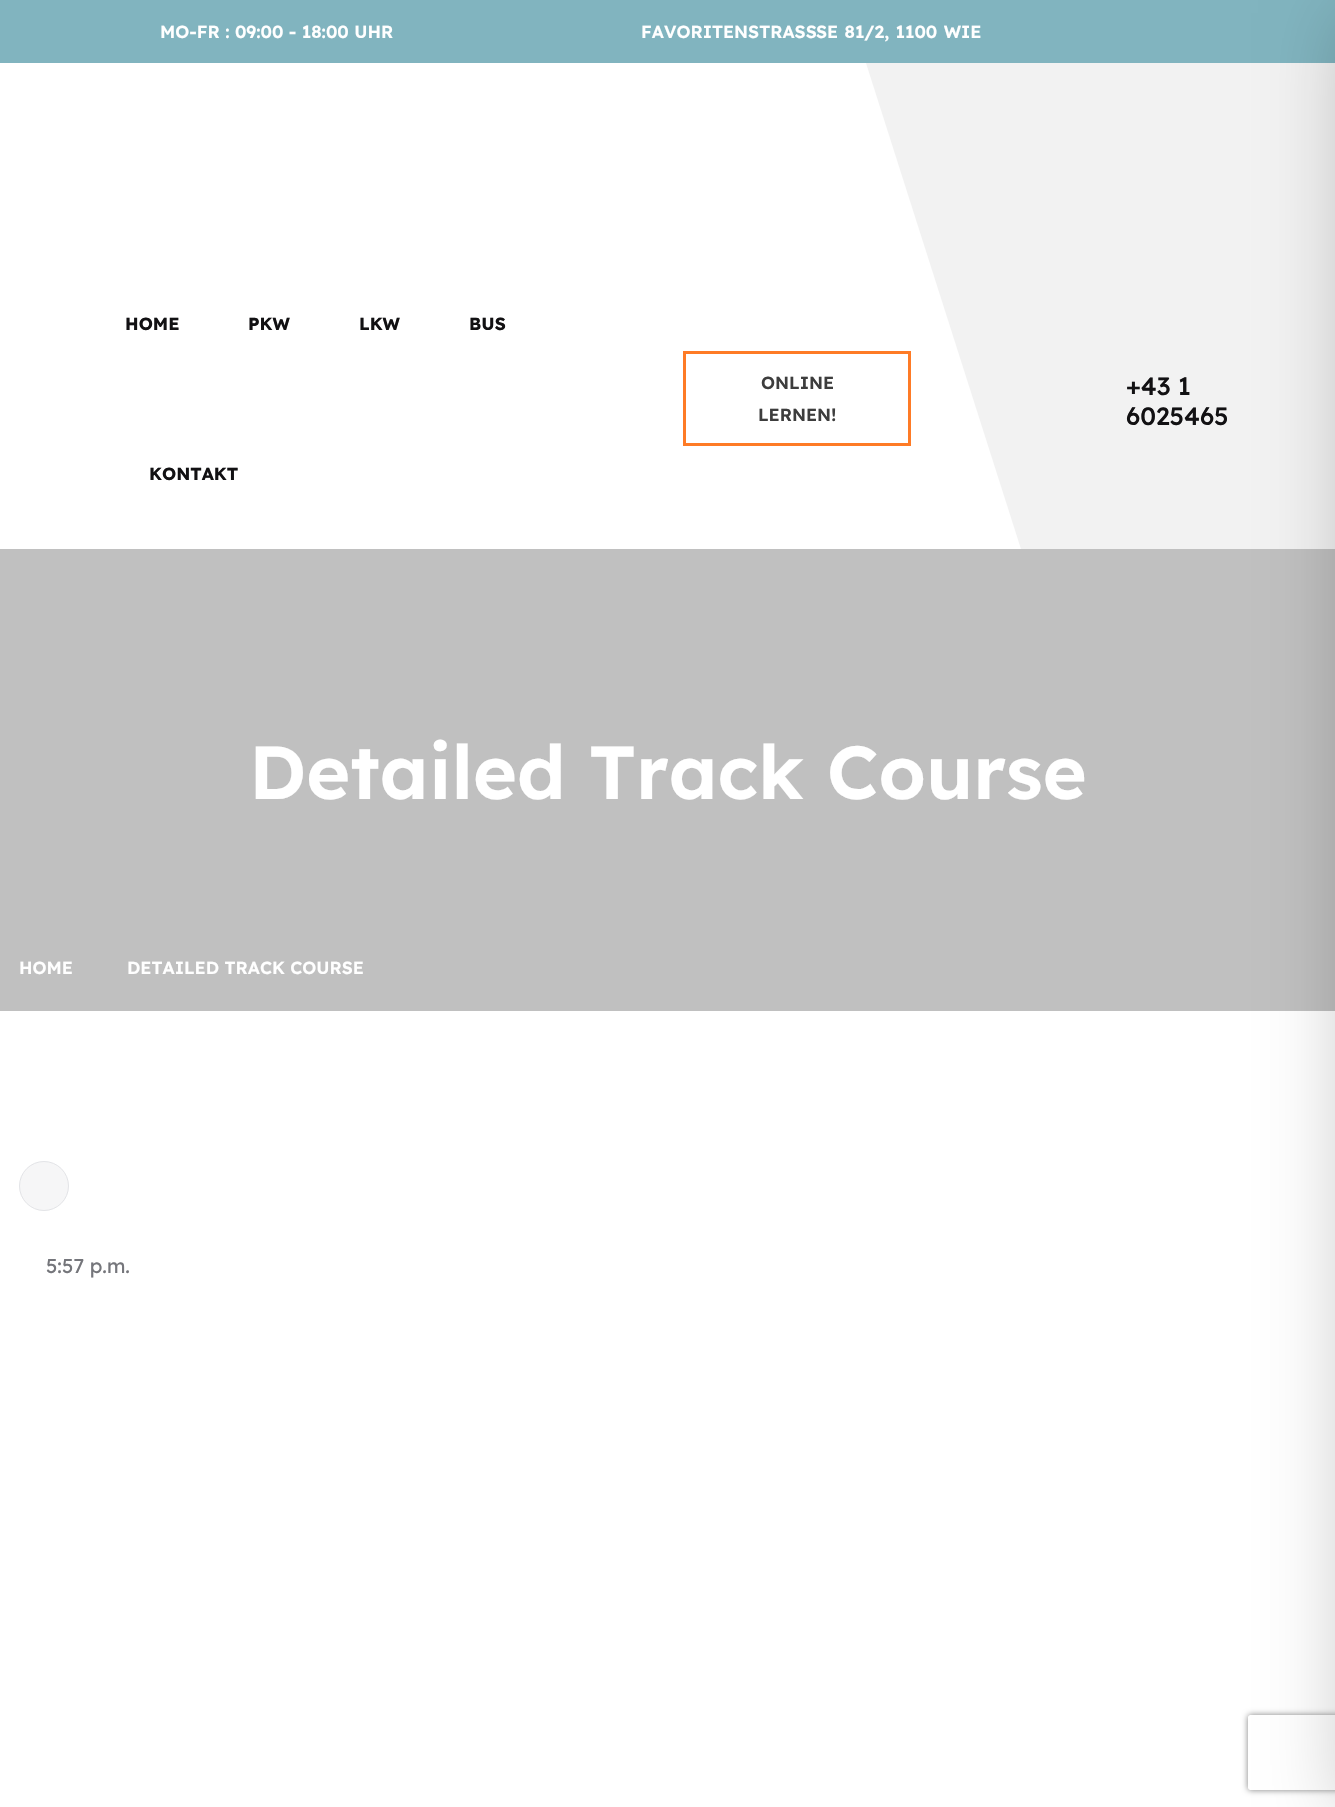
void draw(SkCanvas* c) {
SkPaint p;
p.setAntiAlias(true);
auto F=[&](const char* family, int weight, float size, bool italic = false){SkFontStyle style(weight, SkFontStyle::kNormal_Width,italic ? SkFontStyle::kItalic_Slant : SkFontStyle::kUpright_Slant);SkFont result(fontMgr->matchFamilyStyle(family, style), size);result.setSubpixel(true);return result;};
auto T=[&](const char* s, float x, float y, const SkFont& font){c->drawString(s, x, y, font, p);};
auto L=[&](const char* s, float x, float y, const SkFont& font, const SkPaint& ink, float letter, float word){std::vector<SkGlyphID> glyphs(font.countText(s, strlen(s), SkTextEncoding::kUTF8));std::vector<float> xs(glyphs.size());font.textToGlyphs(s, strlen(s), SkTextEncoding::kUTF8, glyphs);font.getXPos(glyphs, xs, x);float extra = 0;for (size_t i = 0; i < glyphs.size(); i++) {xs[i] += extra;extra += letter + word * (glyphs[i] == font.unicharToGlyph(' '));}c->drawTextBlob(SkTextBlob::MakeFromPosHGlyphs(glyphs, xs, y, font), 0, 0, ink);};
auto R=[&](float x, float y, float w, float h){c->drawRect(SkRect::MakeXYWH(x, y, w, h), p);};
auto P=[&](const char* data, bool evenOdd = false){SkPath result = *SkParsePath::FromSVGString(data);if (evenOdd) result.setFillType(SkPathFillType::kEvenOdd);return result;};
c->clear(0xffffffff);
p.setColor(0xff81b4bf);
R(0,0,1335,63);
auto f1 = F("Lexend",600,17.5);
p.setColor(0xffffffff);
T("MO-FR : 09:00 - 18:00 UHR",160,38,f1);
T("FAVORITENSTRASS",641,38,f1);
L("SE 81/2, 1100 WIE",816,38,f1,p,0,1);
p.setColor(0xfff2f2f2);
c->drawPath(P("M1335 549v-486h-469l155 486z"),p);
auto f2 = F("Lexend",700,17.5);
p.setColor(0xff121113);
T("HOME",125,330,f2);
T("PKW",248,330,f2);
T("LKW",359,330,f2);
T("BUS",469,330,f2);
T("KONTAKT",149,480,f2);
p.setStroke(true);
p.setStrokeWidth(3);
p.setColor(0xfffe7b26);
c->drawRect(SkRect::MakeXYWH(684.5,352.5,225,92),p);
p.setStroke(false);
p.setColor(0xff3d3d3d);
T("ONLINE",761,389,f1);
T("LERNEN!",758,421,f1);
auto f3 = F("Lexend",500,25);
p.setColor(0xff121113);
T("+43 1",1126,395,f3);
T("6025465",1126,425,f3);
p.setColor(0xffc0c0c0);
R(0,549,1335,462);
auto f4 = F("Lexend",600,75);
p.setColor(0xffffffff);
T("Detailed Track Course",249,799,f4);
T("HOME",19,974,f1);
T("DETAILED TRACK COURSE",127,974,f1);
p.setColor(0xfff6f6f7);
c->drawCircle(44,1186,24.5,p);
p.setStroke(true);
p.setStrokeWidth(1);
p.setColor(0xffe3e4e7);
c->drawCircle(44,1186,24.5,p);
auto f5 = F("Lexend",400,20);
p.setStroke(false);
p.setColor(0xff75767b);
T("5:57 p.m.",46,1273,f5);
p.setColor(0x33000000);
p.setMaskFilter(SkMaskFilter::MakeBlur(kNormal_SkBlurStyle, 37.5));
c->drawRect(SkRect::MakeXYWH(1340,13,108,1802),p);
p.setMaskFilter(nullptr);
c->save();
c->clipPath(P("M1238 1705h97v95h-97zm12.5 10h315c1.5 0 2.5 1 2.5 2.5v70c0 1.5-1 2.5-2.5 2.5h-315c-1.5 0-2.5-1-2.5-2.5v-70c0-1.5 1-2.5 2.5-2.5z",true),true);
p.setColor(0xff808080);
p.setMaskFilter(SkMaskFilter::MakeBlur(kNormal_SkBlurStyle, 3));
c->drawRoundRect(SkRect::MakeXYWH(1248,1715,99,75),2.5,2.5,p);
p.setMaskFilter(nullptr);
c->restore();
}
